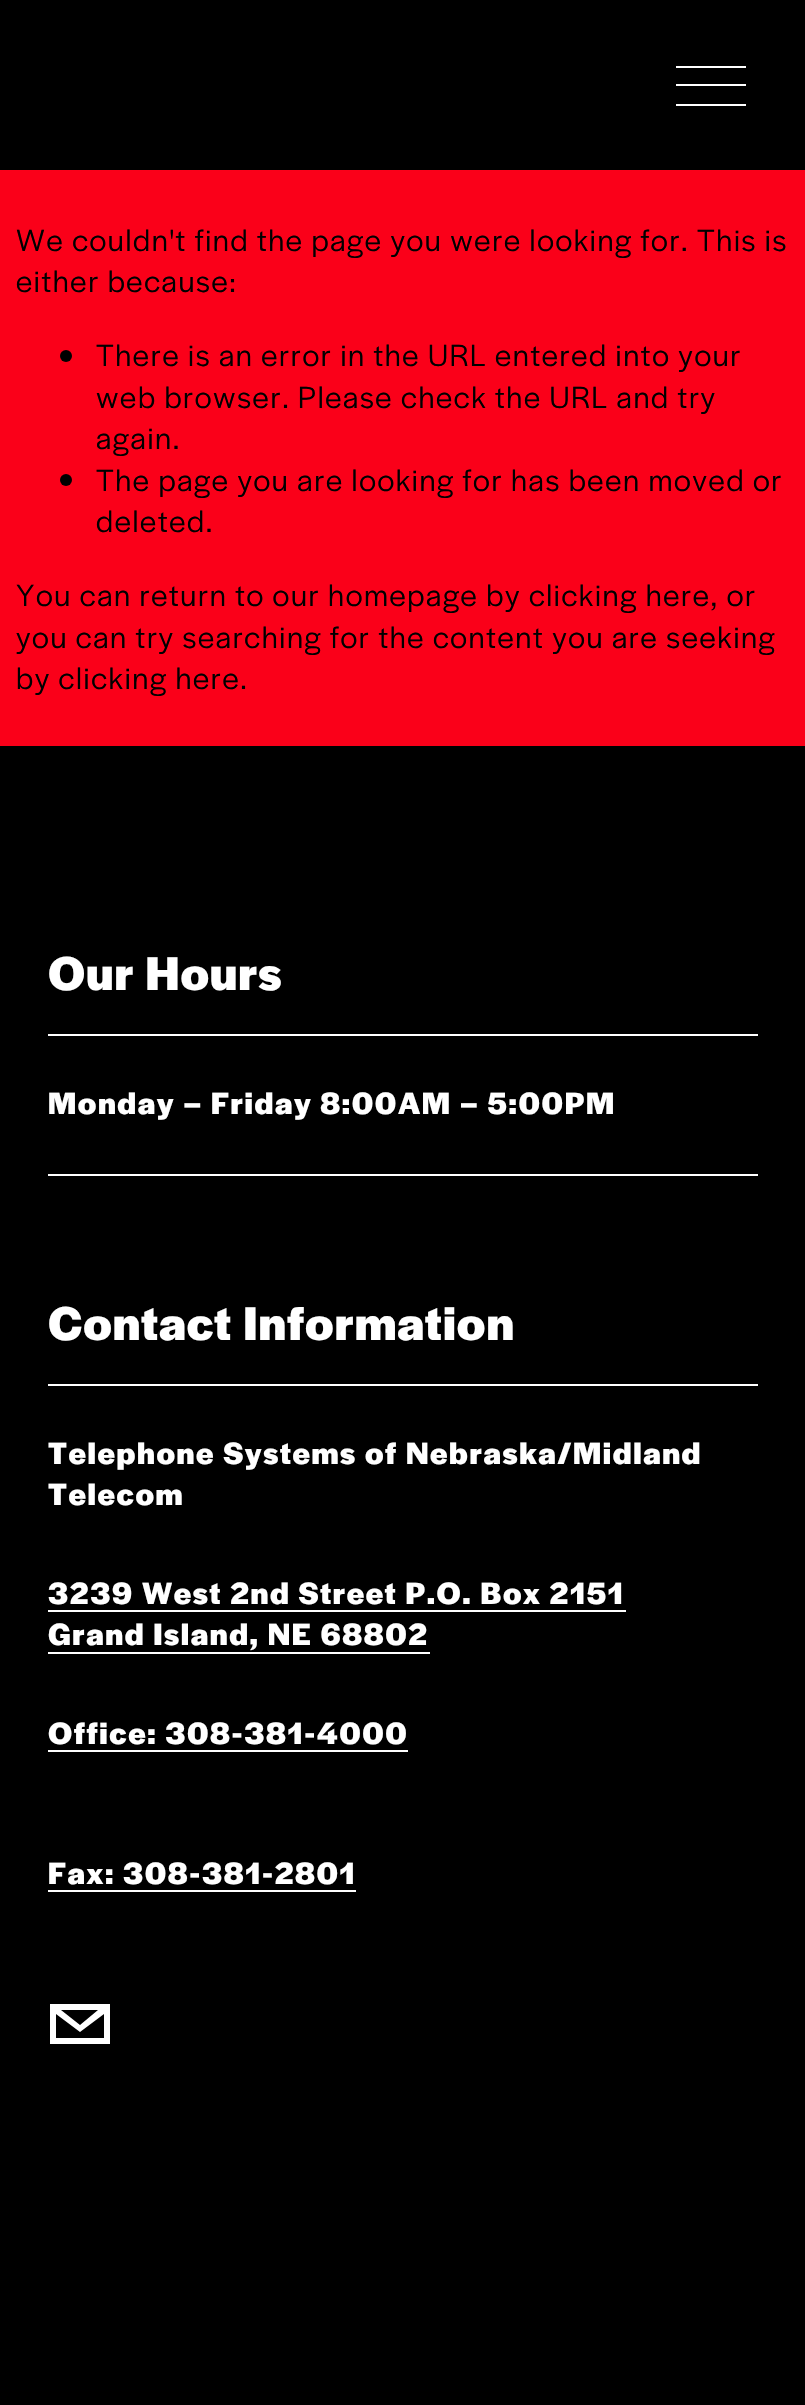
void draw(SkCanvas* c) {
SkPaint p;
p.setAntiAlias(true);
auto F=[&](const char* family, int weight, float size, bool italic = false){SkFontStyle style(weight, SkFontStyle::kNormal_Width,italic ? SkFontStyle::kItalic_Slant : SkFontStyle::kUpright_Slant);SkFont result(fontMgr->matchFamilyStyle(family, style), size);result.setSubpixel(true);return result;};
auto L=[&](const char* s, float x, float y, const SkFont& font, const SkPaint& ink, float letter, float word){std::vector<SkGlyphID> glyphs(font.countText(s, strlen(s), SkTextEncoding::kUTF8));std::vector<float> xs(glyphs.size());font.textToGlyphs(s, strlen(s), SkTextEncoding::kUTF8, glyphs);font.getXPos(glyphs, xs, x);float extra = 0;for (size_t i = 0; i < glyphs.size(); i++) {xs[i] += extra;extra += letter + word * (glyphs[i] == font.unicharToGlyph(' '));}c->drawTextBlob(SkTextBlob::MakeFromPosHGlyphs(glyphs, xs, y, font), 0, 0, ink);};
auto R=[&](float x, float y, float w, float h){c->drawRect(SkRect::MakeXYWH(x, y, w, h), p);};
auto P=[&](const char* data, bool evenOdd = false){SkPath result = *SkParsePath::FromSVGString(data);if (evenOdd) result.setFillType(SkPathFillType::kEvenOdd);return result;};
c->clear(0xfffa0019);
p.setColor(0xff000000);
R(0,0,805,170);
p.setColor(0xffffffff);
R(676,66,70,2);
R(676,84,70,2);
R(676,104,70,2);
auto f1 = F("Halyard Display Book",400,32);
p.setColor(0xff000000);
L("We couldn't find the page you were looking for. This is",16,251,f1,p,1.6,0);
L("either because:",16,292,f1,p,1.6,0);
c->drawCircle(66,356,6,p);
L("There is an error in the URL entered into your",96,366,f1,p,1.6,0);
L("web browser. Please check the URL and try",96,408,f1,p,1.6,0);
L("again.",96,449,f1,p,1.6,0);
c->drawCircle(66,480,6,p);
L("The page you are looking for has been moved or",96,491,f1,p,1.6,0);
L("deleted.",96,532,f1,p,1.6,0);
L("You can return to our homepage by clicking here, or",16,606,f1,p,1.6,0);
L("you can try searching for the content you are seeking",16,648,f1,p,1.6,0);
L("by clicking here.",16,689,f1,p,1.6,0);
R(0,746,805,1659);
auto f2 = F("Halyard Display",700,49.25);
p.setColor(0xffffffff);
L("Our Hours",48,990,f2,p,1,0);
R(48,1034,710,2);
auto f3 = F("Halyard Display",700,32);
L("Monday – Friday 8:00AM – 5:00PM",48,1114,f3,p,1.6,0);
R(48,1174,710,2);
L("Contact Information",48,1340,f2,p,1,0);
R(48,1384,710,2);
L("Telephone Systems of Nebraska/Midland",48,1464,f3,p,1.6,0);
L("Telecom",48,1505,f3,p,1.6,0);
L("3239 West 2nd Street P.O. Box 2151",48,1604,f3,p,1.6,0);
R(48,1610,578,2);
L("Grand Island, NE 68802",48,1645,f3,p,1.6,0);
R(48,1652,382,2);
L("Office: 308-381-4000",48,1744,f3,p,1.6,0);
R(48,1750,360,2);
L("Fax: 308-381-2801",48,1884,f3,p,1.6,0);
R(48,1890,308,2);
c->drawPath(P("M50 2004v40h60v-40zm48 6l-18 15l-19-15zm-42 28v-24l24 18l24-18v24z"),p);
}
